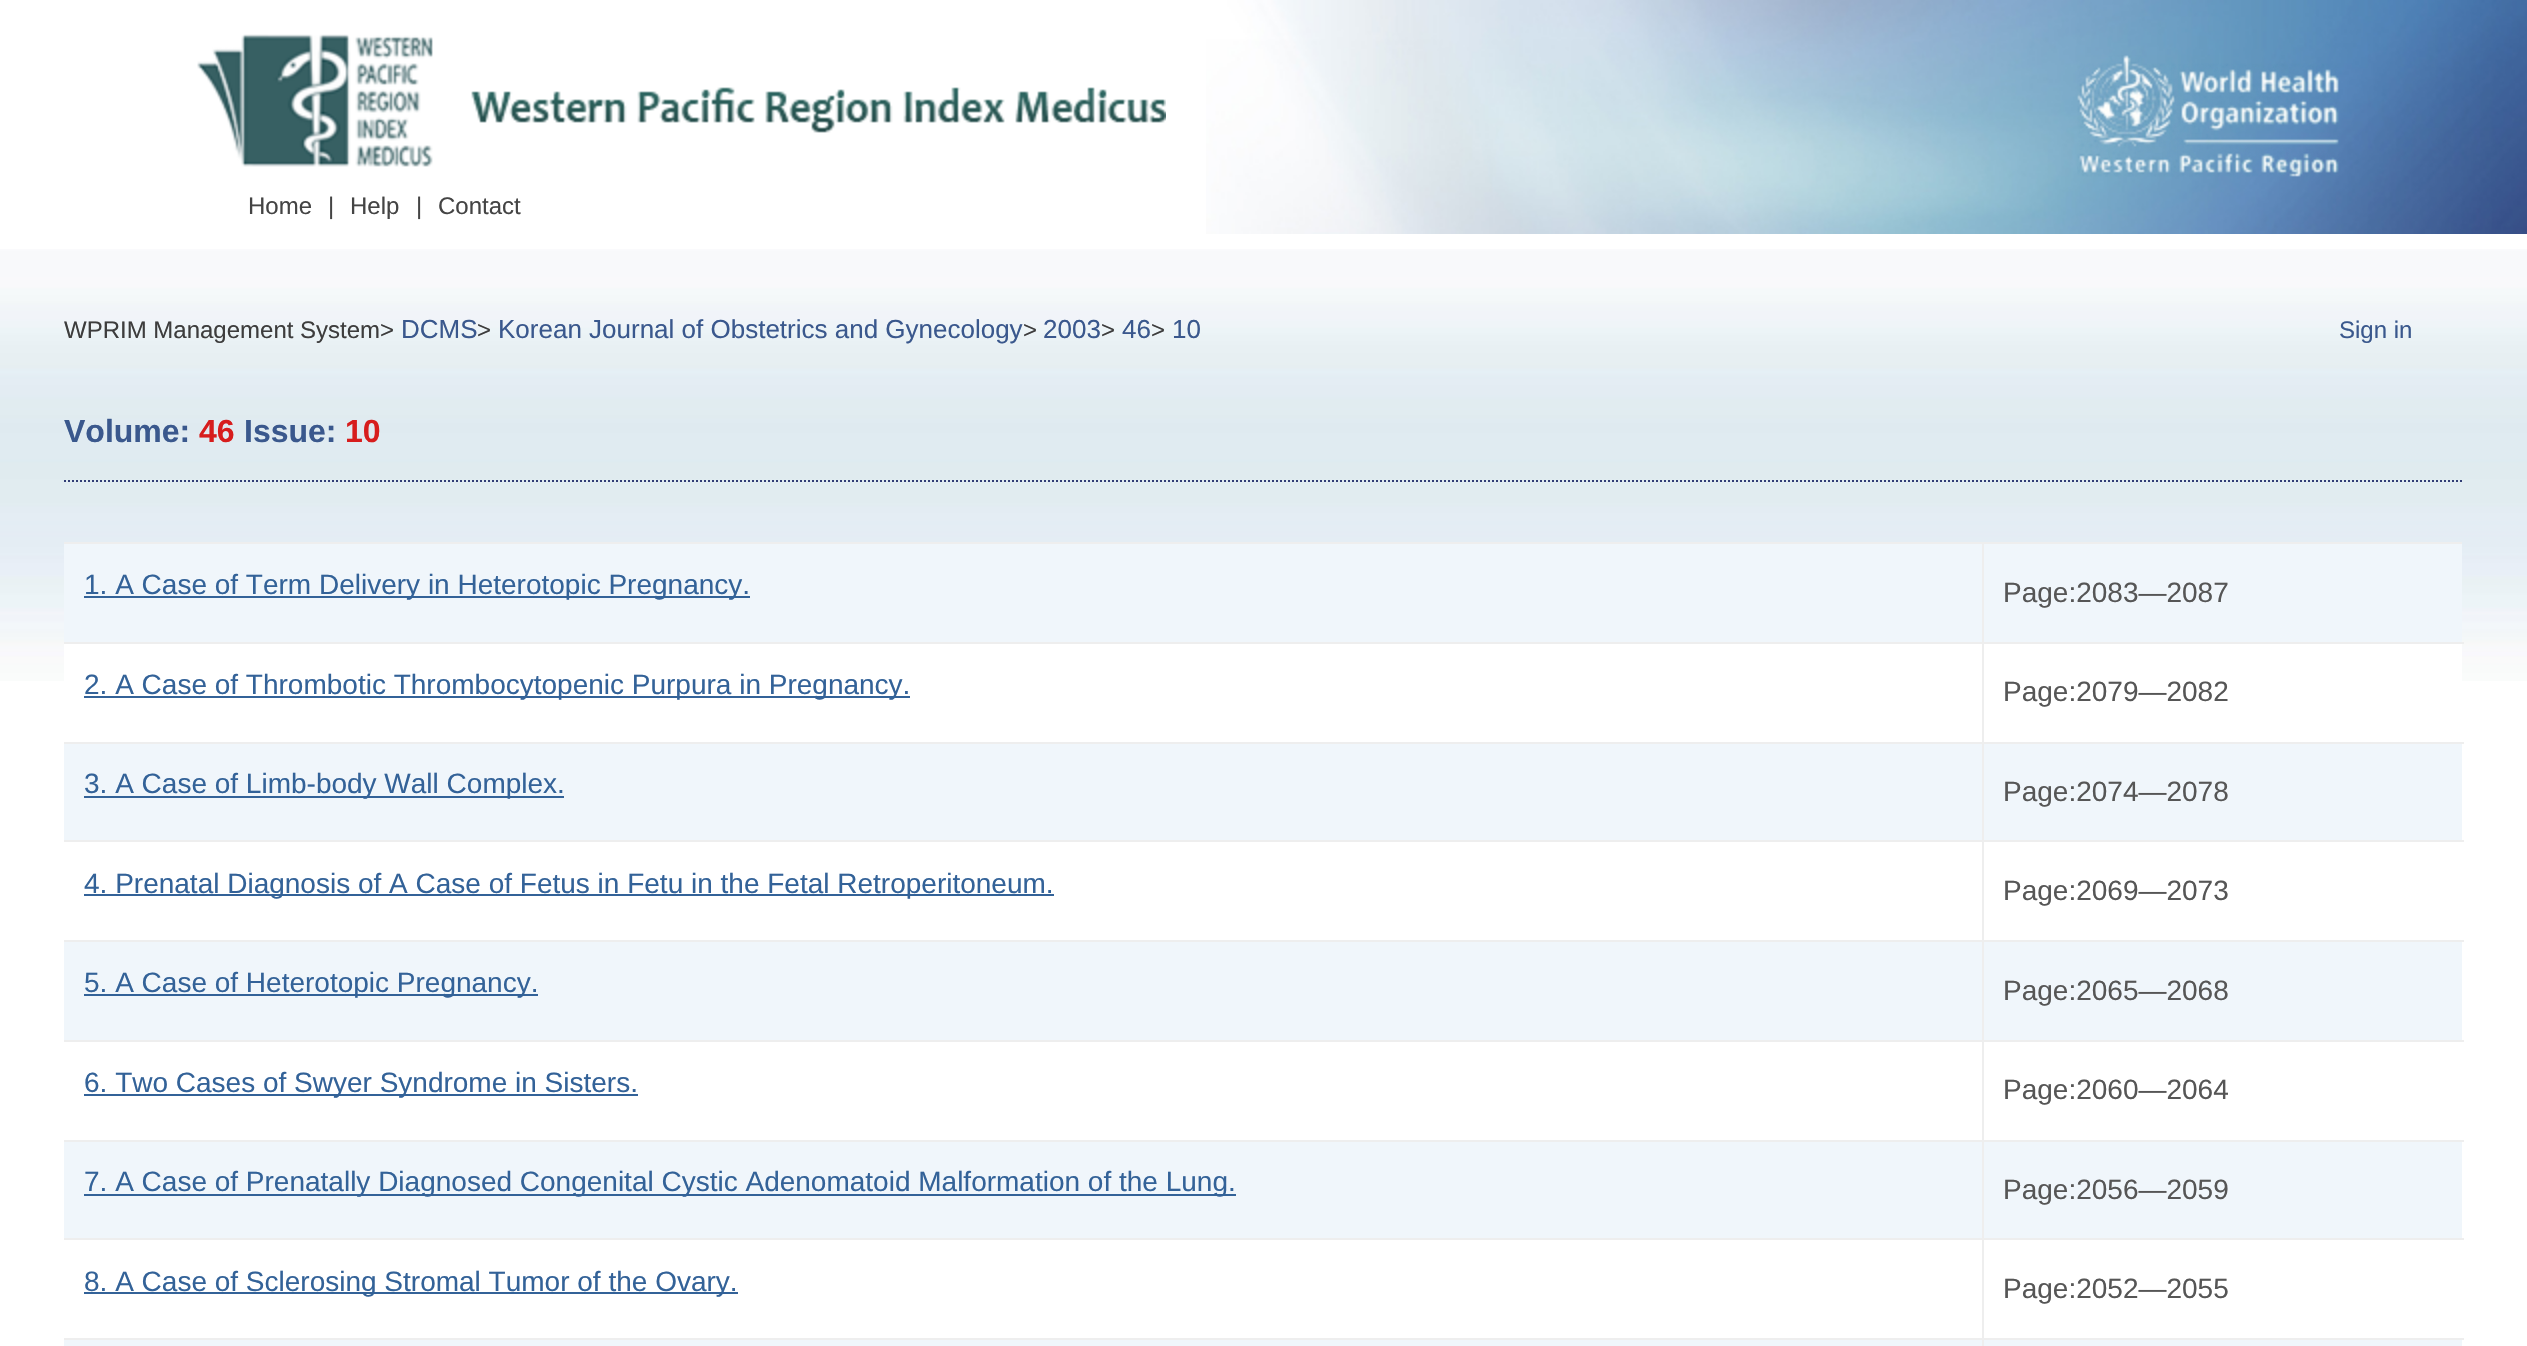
void draw(SkCanvas* c) {
SkPaint p;
p.setAntiAlias(true);
auto F=[&](const char* family, int weight, float size, bool italic = false){SkFontStyle style(weight, SkFontStyle::kNormal_Width,italic ? SkFontStyle::kItalic_Slant : SkFontStyle::kUpright_Slant);SkFont result(fontMgr->matchFamilyStyle(family, style), size);result.setSubpixel(true);return result;};
auto T=[&](const char* s, float x, float y, const SkFont& font){c->drawString(s, x, y, font, p);};
auto R=[&](float x, float y, float w, float h){c->drawRect(SkRect::MakeXYWH(x, y, w, h), p);};
auto I=[&](const char* path, float x, float y, float w, float h){auto image = SkImages::DeferredFromEncodedData(SkData::MakeFromFileName(path));c->drawImageRect(image, SkRect::MakeXYWH(x, y, w, h), SkSamplingOptions());};
auto P=[&](const char* data, bool evenOdd = false){SkPath result = *SkParsePath::FromSVGString(data);if (evenOdd) result.setFillType(SkPathFillType::kEvenOdd);return result;};
c->clear(0xffffffff);
I("1.png",1206,0,1321,234);
I("2.png",197,34,969,133);
auto f1 = F("Liberation Sans",400,24);
p.setColor(0xff444444);
T("Home",248,214,f1);
T("|",328,214,f1);
T("Help",350,214,f1);
T("|",416,214,f1);
T("Contact",438,214,f1);
I("3.png",2077,55,262,122);
I("4.png",0,249,2527,432);
p.setColor(0xff3a588d);
T("Sign in",2339,338,f1);
p.setColor(0xff3d3d3d);
T("WPRIM Management System>",64,338,f1);
auto f2 = F("Liberation Sans",400,26);
p.setColor(0xff3a588d);
T("DCMS",401,338,f2);
p.setColor(0xff3d3d3d);
T(">",477,338,f1);
p.setColor(0xff3a588d);
T("Korean Journal of Obstetrics and Gynecology",498,338,f2);
p.setColor(0xff3d3d3d);
T(">",1023,338,f1);
p.setColor(0xff3a588d);
T("2003",1043,338,f2);
p.setColor(0xff3d3d3d);
T(">",1101,338,f1);
p.setColor(0xff3a588d);
T("46",1122,338,f2);
p.setColor(0xff3d3d3d);
T(">",1151,338,f1);
p.setColor(0xff3a588d);
T("10",1172,338,f2);
auto f3 = F("Liberation Sans",700,32);
T("Volume:",64,442,f3);
p.setColor(0xffd71d1d);
T("46",199,442,f3);
p.setColor(0xff3a588d);
T("Issue:",244,442,f3);
p.setColor(0xffd71d1d);
T("10",345,442,f3);
p.setStroke(true);
p.setStrokeWidth(2);
p.setColor(0xff313d75);
p.setPathEffect(SkDashPathEffect::Make({{2,2}}, 0));
c->drawPath(P("M64 481h2400"),p);
p.setPathEffect(nullptr);
p.setStroke(false);
p.setColor(0xffeeeeee);
R(64,542,2398,2);
p.setColor(0xfff0f6fb);
R(64,544,2398,98);
p.setColor(0xffffffff);
R(64,644,2398,37);
p.setColor(0xfff0f6fb);
R(64,744,2398,96);
R(64,942,2398,98);
R(64,1142,2398,96);
R(64,1340,2398,6);
p.setColor(0xffeeeeee);
R(1982,1338,2,8);
R(1982,1338,482,2);
R(1982,1238,2,102);
R(1982,1238,482,2);
R(1982,1140,2,100);
R(1982,1140,482,2);
R(1982,1040,2,102);
R(1982,1040,482,2);
R(1982,940,2,102);
R(1982,940,482,2);
R(1982,840,2,102);
R(1982,840,482,2);
R(1982,742,2,100);
R(1982,742,482,2);
R(1982,642,2,102);
R(1982,642,482,2);
R(1982,542,2,102);
R(64,642,1920,2);
p.setColor(0xff336298);
R(84,596,666,2);
auto f4 = F("Liberation Sans",400,28);
T("1. A Case of Term Delivery in Heterotopic Pregnancy.",84,594,f4);
p.setColor(0xff565656);
T("Page:2083—2087",2003,602,f4);
p.setColor(0xffeeeeee);
R(64,742,1920,2);
p.setColor(0xff336298);
R(84,696,826,2);
T("2. A Case of Thrombotic Thrombocytopenic Purpura in Pregnancy.",84,694,f4);
p.setColor(0xff565656);
T("Page:2079—2082",2003,701,f4);
p.setColor(0xffeeeeee);
R(64,840,1920,2);
p.setColor(0xff336298);
R(84,796,480,2);
T("3. A Case of Limb-body Wall Complex.",84,793,f4);
p.setColor(0xff565656);
T("Page:2074—2078",2003,801,f4);
p.setColor(0xffeeeeee);
R(64,940,1920,2);
p.setColor(0xff336298);
R(84,894,970,2);
T("4. Prenatal Diagnosis of A Case of Fetus in Fetu in the Fetal Retroperitoneum.",84,893,f4);
p.setColor(0xff565656);
T("Page:2069—2073",2003,900,f4);
p.setColor(0xffeeeeee);
R(64,1040,1920,2);
p.setColor(0xff336298);
R(84,994,454,2);
T("5. A Case of Heterotopic Pregnancy.",84,992,f4);
p.setColor(0xff565656);
T("Page:2065—2068",2003,1000,f4);
p.setColor(0xffeeeeee);
R(64,1140,1920,2);
p.setColor(0xff336298);
R(84,1094,554,2);
T("6. Two Cases of Swyer Syndrome in Sisters.",84,1092,f4);
p.setColor(0xff565656);
T("Page:2060—2064",2003,1099,f4);
p.setColor(0xffeeeeee);
R(64,1238,1920,2);
p.setColor(0xff336298);
R(84,1194,1152,2);
T("7. A Case of Prenatally Diagnosed Congenital Cystic Adenomatoid Malformation of the Lung.",84,1191,f4);
p.setColor(0xff565656);
T("Page:2056—2059",2003,1199,f4);
p.setColor(0xffeeeeee);
R(64,1338,1920,2);
p.setColor(0xff336298);
R(84,1292,654,2);
T("8. A Case of Sclerosing Stromal Tumor of the Ovary.",84,1291,f4);
p.setColor(0xff565656);
T("Page:2052—2055",2003,1298,f4);
}
